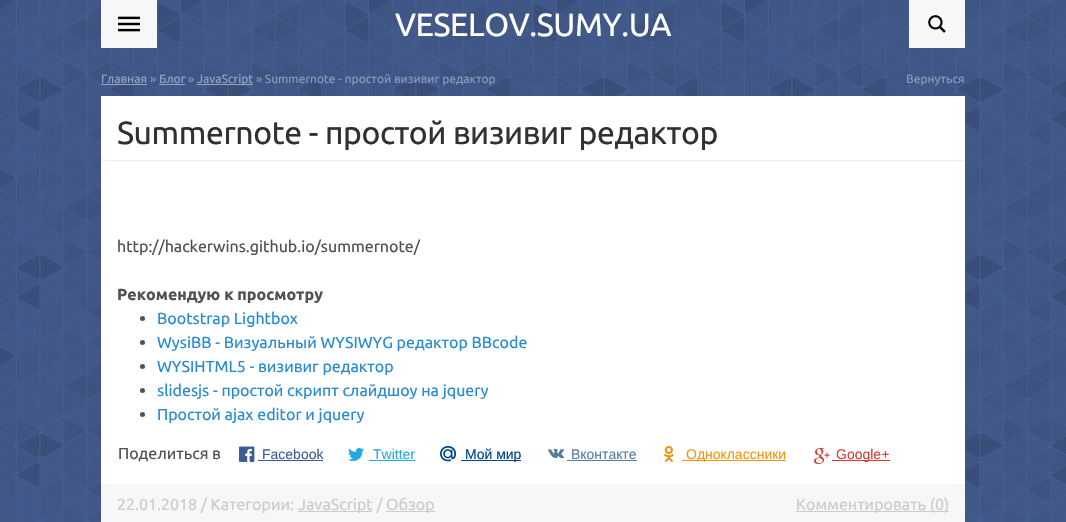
void draw(SkCanvas* c) {
SkPaint p;
p.setAntiAlias(true);
auto F=[&](const char* family, int weight, float size, bool italic = false){SkFontStyle style(weight, SkFontStyle::kNormal_Width,italic ? SkFontStyle::kItalic_Slant : SkFontStyle::kUpright_Slant);SkFont result(fontMgr->matchFamilyStyle(family, style), size);result.setSubpixel(true);return result;};
auto T=[&](const char* s, float x, float y, const SkFont& font){c->drawString(s, x, y, font, p);};
auto L=[&](const char* s, float x, float y, const SkFont& font, const SkPaint& ink, float letter, float word){std::vector<SkGlyphID> glyphs(font.countText(s, strlen(s), SkTextEncoding::kUTF8));std::vector<float> xs(glyphs.size());font.textToGlyphs(s, strlen(s), SkTextEncoding::kUTF8, glyphs);font.getXPos(glyphs, xs, x);float extra = 0;for (size_t i = 0; i < glyphs.size(); i++) {xs[i] += extra;extra += letter + word * (glyphs[i] == font.unicharToGlyph(' '));}c->drawTextBlob(SkTextBlob::MakeFromPosHGlyphs(glyphs, xs, y, font), 0, 0, ink);};
auto R=[&](float x, float y, float w, float h){c->drawRect(SkRect::MakeXYWH(x, y, w, h), p);};
auto I=[&](const char* path, float x, float y, float w, float h){auto image = SkImages::DeferredFromEncodedData(SkData::MakeFromFileName(path));c->drawImageRect(image, SkRect::MakeXYWH(x, y, w, h), SkSamplingOptions());};
c->clear(0xffffffff);
I("1.png",0,0,1066,522);
p.setColor(0xfff7f7f7);
R(101,0,56,48);
I("2.png",118,16,22,16);
auto f1 = F("Ubuntu",400,32);
p.setColor(0xffffffff);
L("VESELOV.SUMY.UA",395,36,f1,p,-.4,0);
p.setColor(0xfff7f7f7);
R(909,0,56,48);
I("3.png",928,15,18,18);
auto f2 = F("Ubuntu",400,12);
p.setColor(0xff94a3c2);
T("Главная",101,83,f2);
R(101,84,46,1);
p.setColor(0xff8b9ab9);
T("»",150,83,f2);
p.setColor(0xff94a3c2);
T("Блог",159,83,f2);
R(159,84,26,1);
p.setColor(0xff8b9ab9);
T("»",188,83,f2);
p.setColor(0xff94a3c2);
R(197,84,56,1);
T("JavaScript",197,83,f2);
p.setColor(0xff8b9ab9);
T("» Summernote - простой визивиг редактор",256,83,f2);
T("Вернуться",906,83,f2);
p.setColor(0xffffffff);
R(101,96,864,388);
p.setColor(0xff313131);
L("Summernote - простой визивиг редактор",117,144,f1,p,-.4,0);
p.setColor(0xffeeeeee);
R(102,160,862,1);
auto f3 = F("Ubuntu",400,16);
p.setColor(0xff515151);
T("http://hackerwins.github.io/summernote/",117,252,f3);
auto f4 = F("Ubuntu",700,16);
T("Рекомендую к просмотру",117,300,f4);
c->drawCircle(142.5,318.5,2.5,p);
p.setColor(0xff268bd2);
T("Bootstrap Lightbox",157,324,f3);
p.setColor(0xff515151);
c->drawCircle(142.5,342.5,2.5,p);
p.setColor(0xff268bd2);
T("WysiBB - Визуальный WYSIWYG редактор BBcode",157,348,f3);
p.setColor(0xff515151);
c->drawCircle(142.5,366.5,2.5,p);
p.setColor(0xff268bd2);
T("WYSIHTML5 - визивиг редактор",157,372,f3);
p.setColor(0xff515151);
c->drawCircle(142.5,390.5,2.5,p);
p.setColor(0xff268bd2);
T("slidesjs - простой скрипт слайдшоу на jquery",157,396,f3);
p.setColor(0xff515151);
c->drawCircle(142.5,414.5,2.5,p);
p.setColor(0xff268bd2);
T("Простой ajax editor и jquery",157,420,f3);
p.setColor(0xff515151);
T("Поделиться в",118,459,f3);
I("4.png",239,446,16,16);
auto f5 = F("Liberation Sans",400,14);
p.setColor(0xff3d5b95);
T("Facebook",262,459,f5);
R(258,460,65,1);
I("5.png",348,447,16,14);
p.setColor(0xff24aadd);
T("Twitter",373,459,f5);
R(369,460,46,1);
I("6.png",440,445,17,17);
p.setColor(0xff00468c);
R(461,460,60,1);
T("Мой мир",465,459,f5);
I("7.png",548,448,16,11);
p.setColor(0xff587e9f);
T("Вконтакте",571,459,f5);
R(567,460,70,1);
I("8.png",664,445,10,17);
p.setColor(0xfff59310);
R(682,460,104,1);
T("Одноклассники",686,459,f5);
I("9.png",814,447,16,17);
p.setColor(0xffd23e30);
R(832,460,58,1);
T("Google+",836,459,f5);
p.setColor(0xfff7f7f7);
R(101,484,864,38);
p.setColor(0xffcccccc);
T("22.01.2018 / Категории:",117,510,f3);
R(298,511,74,1);
T("JavaScript /",298,510,f3);
R(386,511,49,1);
T("Обзор",386,510,f3);
R(796,511,153,1);
T("Комментировать (0)",796,510,f3);
}
